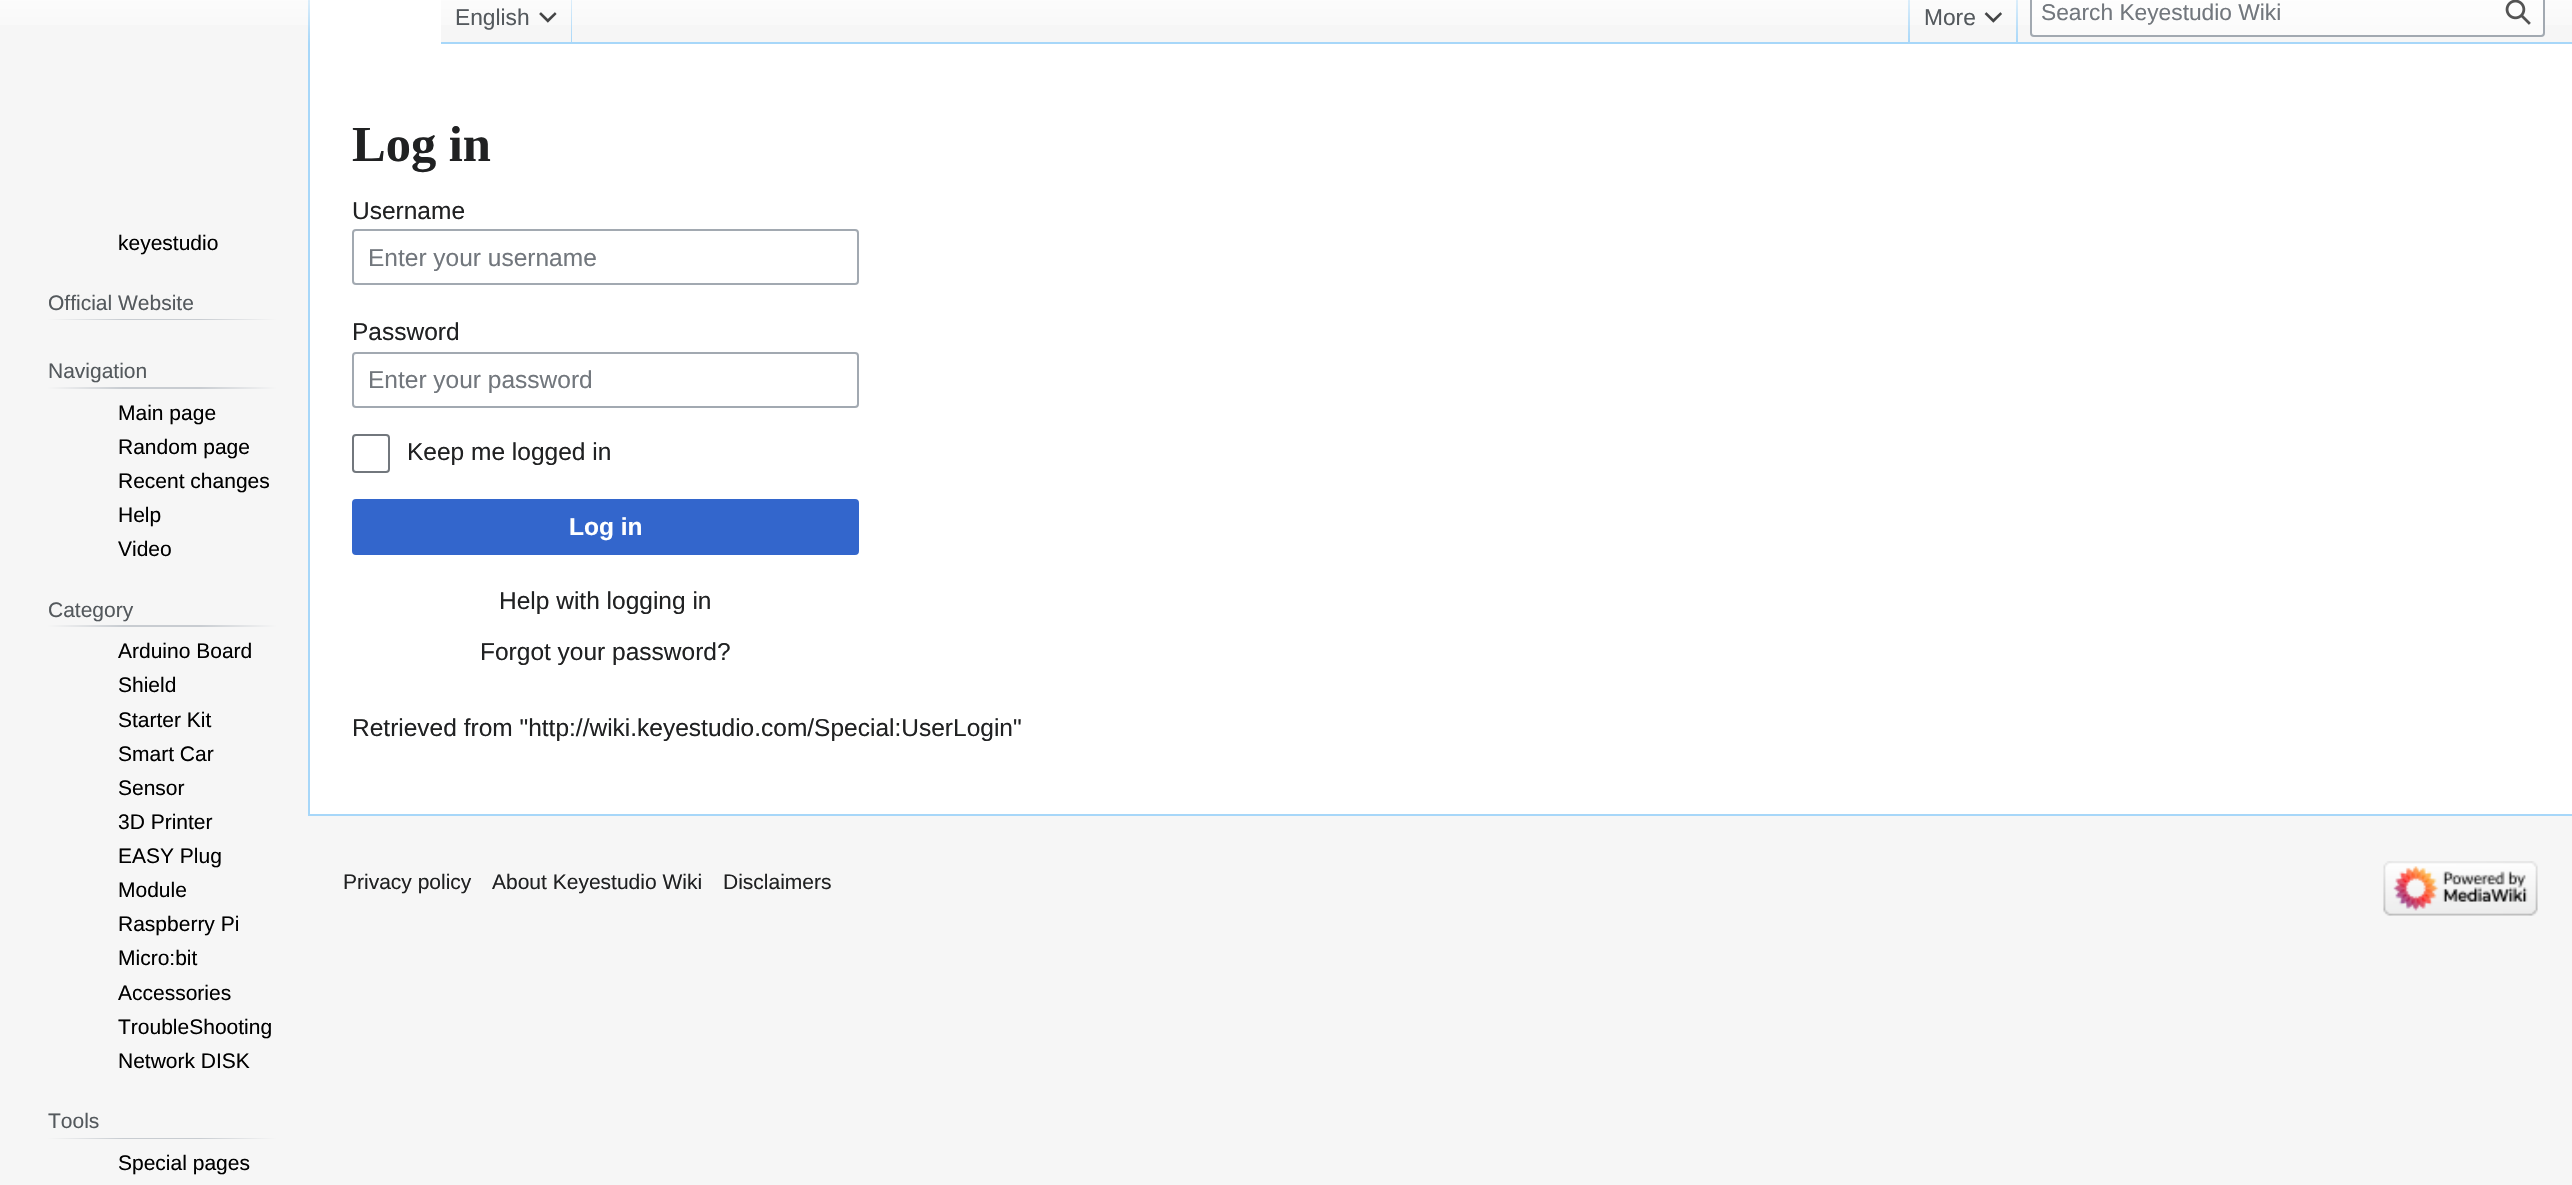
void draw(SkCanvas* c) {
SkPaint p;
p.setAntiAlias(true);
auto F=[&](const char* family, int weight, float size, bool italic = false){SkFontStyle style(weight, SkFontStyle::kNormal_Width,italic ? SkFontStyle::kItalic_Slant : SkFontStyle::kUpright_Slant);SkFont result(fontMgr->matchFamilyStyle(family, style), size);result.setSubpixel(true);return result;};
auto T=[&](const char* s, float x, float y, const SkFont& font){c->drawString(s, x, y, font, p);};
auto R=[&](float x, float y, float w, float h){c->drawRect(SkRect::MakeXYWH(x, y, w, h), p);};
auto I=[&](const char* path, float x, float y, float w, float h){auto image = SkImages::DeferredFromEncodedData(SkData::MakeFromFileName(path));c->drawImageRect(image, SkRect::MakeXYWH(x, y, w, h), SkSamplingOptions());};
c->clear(0xfff6f6f6);
{
const SkColor colors[] = {0xffffffff,0xfff6f6f6};
const float stops[] = {.5,1};
const SkPoint ends[] = {{1286,-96}, {1286,44}};
p.setShader(SkGradientShader::MakeLinear(ends, colors, stops, 2, SkTileMode::kClamp));
p.setAlpha(255);
}
R(0,0,2572,25);
p.setShader(nullptr);
p.setColor(0xffa7d7f9);
R(308,814,2264,2);
R(308,42,2,774);
{
const SkColor colors[] = {0x00a7d7f9,0xffa7d7f9};
const float stops[] = {0,1};
const SkPoint ends[] = {{309,-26}, {309,44}};
p.setShader(SkGradientShader::MakeLinear(ends, colors, stops, 2, SkTileMode::kClamp));
p.setAlpha(255);
}
R(308,0,2,44);
p.setShader(nullptr);
p.setColor(0xffffffff);
R(310,0,131,44);
p.setColor(0xffa7d7f9);
R(441,42,2131,2);
{
const SkColor colors[] = {0x00a7d7f9,0xffa7d7f9};
const float stops[] = {0,1};
const SkPoint ends[] = {{571,-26}, {571,44}};
p.setShader(SkGradientShader::MakeLinear(ends, colors, stops, 2, SkTileMode::kClamp));
p.setAlpha(255);
}
R(571,0,1,44);
auto f1 = F("Liberation Sans",400,22.75);
p.setShader(nullptr);
p.setColor(0xff54595d);
T("English",455,25,f1);
I("1.png",539,12,18,11);
{
const SkColor colors[] = {0x00a7d7f9,0xffa7d7f9};
const float stops[] = {0,1};
const SkPoint ends[] = {{1908,-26}, {1908,44}};
p.setShader(SkGradientShader::MakeLinear(ends, colors, stops, 2, SkTileMode::kClamp));
p.setAlpha(255);
}
R(1908,0,2,44);
{
const SkColor colors[] = {0x00a7d7f9,0xffa7d7f9};
const float stops[] = {0,1};
const SkPoint ends[] = {{2017,-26}, {2017,44}};
p.setShader(SkGradientShader::MakeLinear(ends, colors, stops, 2, SkTileMode::kClamp));
p.setAlpha(255);
}
R(2016,0,2,44);
p.setShader(nullptr);
p.setColor(0xff54595d);
T("More",1924,25,f1);
I("2.png",1984,12,18,11);
p.setColor(0x80ffffff);
c->drawRoundRect(SkRect::MakeXYWH(2031,-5,513,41),3,3,p);
p.setStroke(true);
p.setStrokeWidth(2);
p.setColor(0xffa2a9b1);
c->drawRoundRect(SkRect::MakeXYWH(2031,-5,513,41),3,3,p);
p.setStroke(false);
p.setColor(0xff72777d);
T("Search Keyestudio Wiki",2041,20,f1);
I("3.png",2505,0,26,25);
auto f2 = F("Liberation Sans",400,21);
p.setColor(0xff000000);
T("keyestudio",118,250,f2);
{
const SkColor colors[] = {0xfff6f6f6,0xffc8ccd1,0xffc8ccd1,0xfff6f6f6};
const float stops[] = {0,.33,.66,1};
const SkPoint ends[] = {{47,319}, {277,319}};
p.setShader(SkGradientShader::MakeLinear(ends, colors, stops, 4, SkTileMode::kClamp));
p.setAlpha(255);
}
R(47,319,230,1);
p.setShader(nullptr);
p.setColor(0xff54595d);
T("Official Website",48,310,f2);
{
const SkColor colors[] = {0xfff6f6f6,0xffc8ccd1,0xffc8ccd1,0xfff6f6f6};
const float stops[] = {0,.33,.66,1};
const SkPoint ends[] = {{47,388}, {277,388}};
p.setShader(SkGradientShader::MakeLinear(ends, colors, stops, 4, SkTileMode::kClamp));
p.setAlpha(255);
}
R(47,387,230,2);
p.setShader(nullptr);
p.setColor(0xff54595d);
T("Navigation",48,378,f2);
p.setColor(0xff000000);
T("Main page",118,420,f2);
T("Random page",118,454,f2);
T("Recent changes",118,488,f2);
T("Help",118,522,f2);
T("Video",118,556,f2);
{
const SkColor colors[] = {0xfff6f6f6,0xffc8ccd1,0xffc8ccd1,0xfff6f6f6};
const float stops[] = {0,.33,.66,1};
const SkPoint ends[] = {{47,626}, {277,626}};
p.setShader(SkGradientShader::MakeLinear(ends, colors, stops, 4, SkTileMode::kClamp));
p.setAlpha(255);
}
R(47,625,230,2);
p.setShader(nullptr);
p.setColor(0xff54595d);
T("Category",48,617,f2);
p.setColor(0xff000000);
T("Arduino Board",118,658,f2);
T("Shield",118,692,f2);
T("Starter Kit",118,727,f2);
T("Smart Car",118,761,f2);
T("Sensor",118,795,f2);
T("3D Printer",118,829,f2);
T("EASY Plug",118,863,f2);
T("Module",118,897,f2);
T("Raspberry Pi",118,931,f2);
T("Micro:bit",118,965,f2);
T("Accessories",118,1000,f2);
T("TroubleShooting",118,1034,f2);
T("Network DISK",118,1068,f2);
{
const SkColor colors[] = {0xfff6f6f6,0xffc8ccd1,0xffc8ccd1,0xfff6f6f6};
const float stops[] = {0,.33,.66,1};
const SkPoint ends[] = {{47,1138}, {277,1138}};
p.setShader(SkGradientShader::MakeLinear(ends, colors, stops, 4, SkTileMode::kClamp));
p.setAlpha(255);
}
R(47,1138,230,1);
p.setShader(nullptr);
p.setColor(0xff54595d);
T("Tools",48,1128,f2);
p.setColor(0xff000000);
T("Special pages",118,1170,f2);
p.setColor(0xffffffff);
R(310,44,2262,770);
auto f3 = F("Liberation Serif",700,50.5);
p.setColor(0xff202122);
T("Log in",352,161,f3);
auto f4 = F("Liberation Sans",400,24.5);
T("Username",352,219,f4);
p.setStroke(true);
p.setColor(0xffa2a9b1);
c->drawRoundRect(SkRect::MakeXYWH(353,230,505,54),3,3,p);
p.setStroke(false);
p.setColor(0xff72777d);
T("Enter your username",368,266,f4);
p.setColor(0xff202122);
T("Password",352,340,f4);
p.setStroke(true);
p.setColor(0xffa2a9b1);
c->drawRoundRect(SkRect::MakeXYWH(353,353,505,54),3,3,p);
p.setStroke(false);
p.setColor(0xff72777d);
T("Enter your password",368,388,f4);
p.setStroke(true);
c->drawRoundRect(SkRect::MakeXYWH(353,435,36,37),3,3,p);
p.setStroke(false);
p.setColor(0xff202122);
T("Keep me logged in",407,460,f4);
p.setColor(0xff3366cc);
c->drawRoundRect(SkRect::MakeXYWH(353,500,505,54),3,3,p);
p.setStroke(true);
c->drawRoundRect(SkRect::MakeXYWH(353,500,505,54),3,3,p);
auto f5 = F("Liberation Sans",700,24.5);
p.setStroke(false);
p.setColor(0xffffffff);
T("Log in",569,535,f5);
p.setColor(0xff202122);
T("Help with logging in",499,609,f4);
T("Forgot your password?",480,660,f4);
T("Retrieved from \"http://wiki.keyestudio.com/Special:UserLogin\"",352,736,f4);
T("Privacy policy",343,889,f2);
T("About Keyestudio Wiki",492,889,f2);
T("Disclaimers",723,889,f2);
I("4.png",2383,861,155,55);
}
